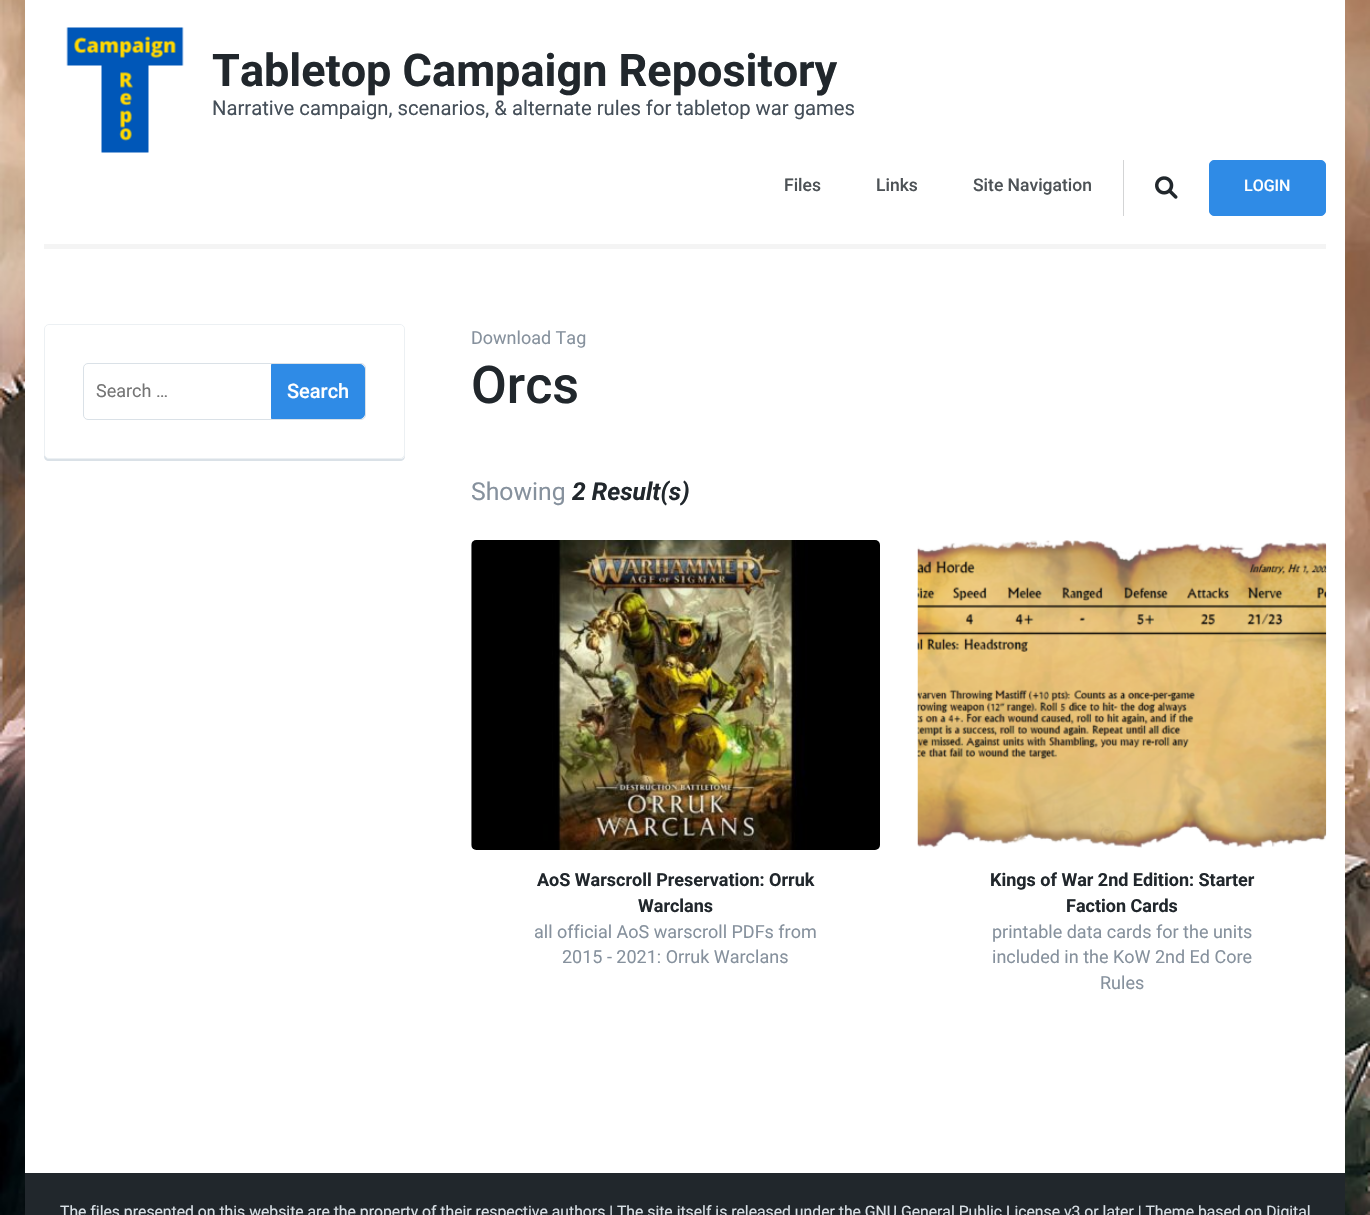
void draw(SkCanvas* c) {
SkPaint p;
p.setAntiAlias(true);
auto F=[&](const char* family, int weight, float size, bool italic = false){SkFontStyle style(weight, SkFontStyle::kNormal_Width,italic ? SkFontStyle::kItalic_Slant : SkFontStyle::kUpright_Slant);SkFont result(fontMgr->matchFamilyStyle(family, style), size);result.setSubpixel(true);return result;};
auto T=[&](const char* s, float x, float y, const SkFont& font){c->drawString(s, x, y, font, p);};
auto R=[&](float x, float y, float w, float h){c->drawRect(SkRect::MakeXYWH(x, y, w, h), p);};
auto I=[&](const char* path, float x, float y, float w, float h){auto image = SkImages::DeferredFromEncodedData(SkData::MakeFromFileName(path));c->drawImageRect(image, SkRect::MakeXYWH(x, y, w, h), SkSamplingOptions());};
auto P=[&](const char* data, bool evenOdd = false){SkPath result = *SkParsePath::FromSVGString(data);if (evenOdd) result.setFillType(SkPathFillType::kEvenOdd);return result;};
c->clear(0xffffffff);
I("1.png",0,0,1370,1215);
p.setColor(0xffffffff);
R(25,0,1320,1173);
p.setColor(0xfff4f4f4);
R(44,244,1282,5);
I("2.png",66,27,118,126);
auto f1 = F("Roboto",700,45);
p.setColor(0xff21272c);
T("Tabletop Campaign Repository",212,86,f1);
auto f2 = F("Roboto",400,20.25);
p.setColor(0xff454f59);
T("Narrative campaign, scenarios, & alternate rules for tabletop war games",212,115,f2);
auto f3 = F("Roboto",500,17.5);
p.setColor(0xff4d5256);
T("Files",784,191,f3);
T("Links",876,191,f3);
T("Site Navigation",973,191,f3);
p.setColor(0xffd3d4d5);
R(1123,160,1,56);
I("3.png",1155,176,23,23);
p.setColor(0xff2f8be6);
c->drawRoundRect(SkRect::MakeXYWH(1209.5,160.5,116,55),4.5,4.5,p);
p.setStroke(true);
p.setStrokeWidth(1);
c->drawRoundRect(SkRect::MakeXYWH(1209.5,160.5,116,55),4.5,4.5,p);
auto f4 = F("Roboto",500,16);
p.setStroke(false);
p.setColor(0xffffffff);
T("LOGIN",1244,191,f4);
p.setColor(0xffdae1e7);
c->drawPath(P("M44 455v1c0 3 2 5 5 5h351c3 0 5-2 5-5v-2c0 3-2 5-5 5h-351c-2 0-4-2-5-4z"),p);
p.setStroke(true);
p.setColor(0x80dae1e7);
c->drawRoundRect(SkRect::MakeXYWH(44.5,324.5,360,134),4.5,4.5,p);
p.setColor(0xffdae1e7);
c->drawRoundRect(SkRect::MakeXYWH(83.5,363.5,282,56),4.5,4.5,p);
auto f5 = F("Roboto",400,18);
p.setStroke(false);
p.setColor(0xff757575);
T("Search …",96,397,f5);
p.setColor(0xff2f8be6);
c->drawPath(P("M271.5 364.5h88.5c2.5 0 4.5 2 4.5 4.5v45c0 2.5-2 4.5-4.5 4.5h-88.5z"),p);
p.setStroke(true);
c->drawPath(P("M271.5 364.5h88.5c2.5 0 4.5 2 4.5 4.5v45c0 2.5-2 4.5-4.5 4.5h-88.5z"),p);
auto f6 = F("Roboto",500,20);
p.setStroke(false);
p.setColor(0xffffffff);
T("Search",287,398,f6);
p.setColor(0xff86919d);
T("Download Tag",471,344,f5);
auto f7 = F("Roboto",500,52);
p.setColor(0xff21272c);
T("Orcs",471,403,f7);
auto f8 = F("Roboto",400,24.75);
p.setColor(0xff86919d);
T("Showing",471,500,f8);
auto f9 = F("Roboto",700,24.75,true);
p.setColor(0xff21272c);
T("2 Result(s)",572,500,f9);
I("4.png",471,540,409,310);
auto f10 = F("Roboto",700,18);
T("AoS Warscroll Preservation: Orruk",537,886,f10);
T("Warclans",638,912,f10);
p.setColor(0xff86919d);
T("all official AoS warscroll PDFs from",534,938,f5);
T("2015 - 2021: Orruk Warclans",562,963,f5);
I("5.png",917,540,410,308);
p.setColor(0xff21272c);
T("Kings of War 2nd Edition: Starter",990,886,f10);
T("Faction Cards",1066,912,f10);
p.setColor(0xff86919d);
T("printable data cards for the units",992,938,f5);
T("included in the KoW 2nd Ed Core",992,963,f5);
T("Rules",1100,989,f5);
p.setColor(0xff21272c);
R(25,1173,1320,42);
auto f11 = F("Roboto",400,15.75);
p.setColor(0xffdae1e7);
T("The files presented on this website are the property of their respective authors | The site itself is released under the GNU General Public License v3 or later | Theme based on Digital",60,1217,f11);
}
